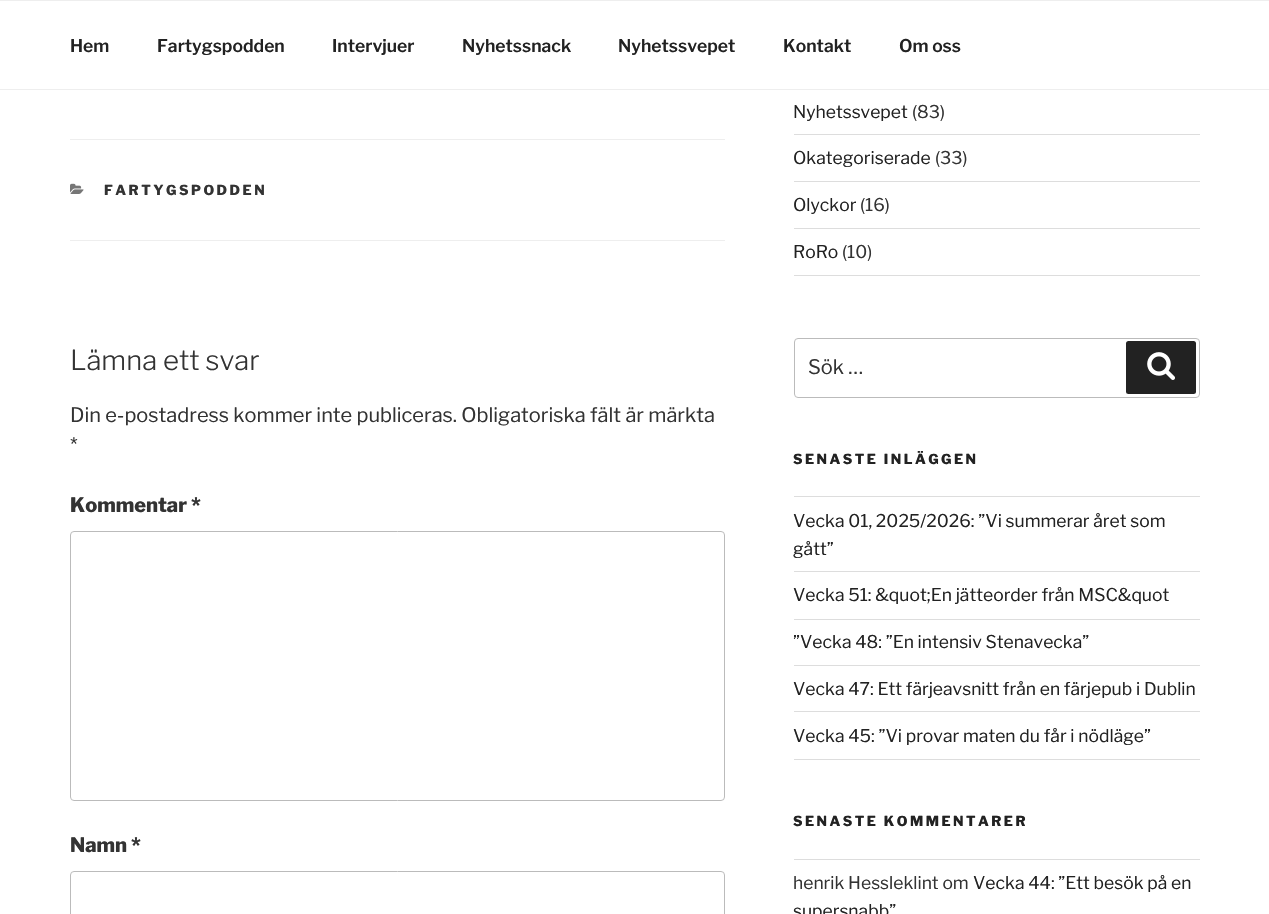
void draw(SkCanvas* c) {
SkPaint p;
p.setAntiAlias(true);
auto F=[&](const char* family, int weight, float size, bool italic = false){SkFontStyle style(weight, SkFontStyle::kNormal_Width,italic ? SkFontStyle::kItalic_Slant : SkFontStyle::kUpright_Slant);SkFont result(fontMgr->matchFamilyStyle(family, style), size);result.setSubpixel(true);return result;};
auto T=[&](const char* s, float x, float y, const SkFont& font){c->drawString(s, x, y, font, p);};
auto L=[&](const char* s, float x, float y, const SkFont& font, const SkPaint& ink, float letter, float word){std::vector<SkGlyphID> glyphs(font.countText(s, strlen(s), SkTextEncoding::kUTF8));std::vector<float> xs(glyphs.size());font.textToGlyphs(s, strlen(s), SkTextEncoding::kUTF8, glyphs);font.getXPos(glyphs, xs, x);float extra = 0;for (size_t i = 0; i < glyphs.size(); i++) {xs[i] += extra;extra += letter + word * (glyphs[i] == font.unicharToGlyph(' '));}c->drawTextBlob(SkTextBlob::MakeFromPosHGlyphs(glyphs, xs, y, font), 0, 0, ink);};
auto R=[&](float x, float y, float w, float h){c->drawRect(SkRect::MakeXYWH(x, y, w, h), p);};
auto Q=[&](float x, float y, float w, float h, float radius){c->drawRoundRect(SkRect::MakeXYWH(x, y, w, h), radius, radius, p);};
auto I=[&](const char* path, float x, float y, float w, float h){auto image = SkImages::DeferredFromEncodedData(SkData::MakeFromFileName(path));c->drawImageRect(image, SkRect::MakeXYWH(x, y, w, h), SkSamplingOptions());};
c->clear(0xffffffff);
p.setColor(0xffeeeeee);
R(0,0,1269,1);
R(0,89,1269,1);
auto f1 = F("Libre Franklin",600,17.5);
p.setColor(0xff222222);
T("Hem",70,52,f1);
T("Fartygspodden",157,52,f1);
T("Intervjuer",332,52,f1);
T("Nyhetssnack",462,52,f1);
T("Nyhetssvepet",618,52,f1);
T("Kontakt",783,52,f1);
T("Om oss",899,52,f1);
p.setColor(0xffeeeeee);
R(70,139,655,1);
R(70,240,655,1);
I("1.png",70,183,14,11);
auto f2 = F("Libre Franklin",800,13.75);
p.setColor(0xff333333);
L("FARTYGSPODDEN",104,195,f2,p,2.5,0);
auto f3 = F("Libre Franklin",300,27.5);
T("Lämna ett svar",70,370,f3);
auto f4 = F("Libre Franklin",400,20);
T("Din e-postadress kommer inte publiceras. Obligatoriska fält är märkta",70,422,f4);
T("*",70,452,f4);
auto f5 = F("Libre Franklin",800,20);
T("Kommentar *",70,512,f5);
p.setStroke(true);
p.setStrokeWidth(1);
p.setColor(0xffbbbbbb);
c->drawRoundRect(SkRect::MakeXYWH(70.5,531.5,654,269),3.5,3.5,p);
p.setStroke(false);
p.setColor(0xff333333);
T("Namn *",70,852,f5);
p.setStroke(true);
p.setColor(0xffbbbbbb);
c->drawRoundRect(SkRect::MakeXYWH(70.5,871.5,654,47),3.5,3.5,p);
p.setStroke(false);
p.setColor(0xffdddddd);
R(794,134,406,1);
auto f6 = F("Libre Franklin",400,17.5);
p.setColor(0xff222222);
T("Nyhetssvepet",793,118,f6);
p.setColor(0xff333333);
T("(83)",912,118,f6);
p.setColor(0xffdddddd);
R(794,181,406,1);
p.setColor(0xff222222);
T("Okategoriserade",793,164,f6);
p.setColor(0xff333333);
T("(33)",935,164,f6);
p.setColor(0xffdddddd);
R(794,228,406,1);
p.setColor(0xff222222);
T("Olyckor",793,211,f6);
p.setColor(0xff333333);
T("(16)",860,211,f6);
p.setColor(0xffdddddd);
R(794,275,406,1);
p.setColor(0xff222222);
T("RoRo",793,258,f6);
p.setColor(0xff333333);
T("(10)",842,258,f6);
p.setStroke(true);
p.setColor(0xffbbbbbb);
c->drawRoundRect(SkRect::MakeXYWH(794.5,338.5,405,59),3.5,3.5,p);
p.setStroke(false);
p.setColor(0xff333333);
T("Sök …",808,374,f4);
p.setColor(0xff222222);
Q(1126,341,70,53,2.5);
I("2.png",1147,352,28,28);
L("SENASTE INLÄGGEN",793,464,f2,p,2.5,0);
p.setColor(0xffdddddd);
R(794,496,406,1);
R(794,571,406,1);
p.setColor(0xff222222);
T("Vecka 01, 2025/2026: ”Vi summerar året som",793,527,f6);
T("gått”",793,555,f6);
p.setColor(0xffdddddd);
R(794,619,406,1);
p.setColor(0xff222222);
T("Vecka 51: &quot;En jätteorder från MSC&quot",793,601,f6);
p.setColor(0xffdddddd);
R(794,665,406,1);
p.setColor(0xff222222);
T("”Vecka 48: ”En intensiv Stenavecka”",793,648,f6);
p.setColor(0xffdddddd);
R(794,711,406,1);
p.setColor(0xff222222);
T("Vecka 47: Ett färjeavsnitt från en färjepub i Dublin",793,695,f6);
p.setColor(0xffdddddd);
R(794,759,406,1);
p.setColor(0xff222222);
T("Vecka 45: ”Vi provar maten du får i nödläge”",793,742,f6);
L("SENASTE KOMMENTARER",793,826,f2,p,2.5,0);
p.setColor(0xffdddddd);
R(794,859,406,1);
p.setColor(0xff333333);
T("henrik Hessleklint om",793,889,f6);
p.setColor(0xff222222);
T("Vecka 44: ”Ett besök på en",973,889,f6);
T("supersnabb”",793,917,f6);
}
